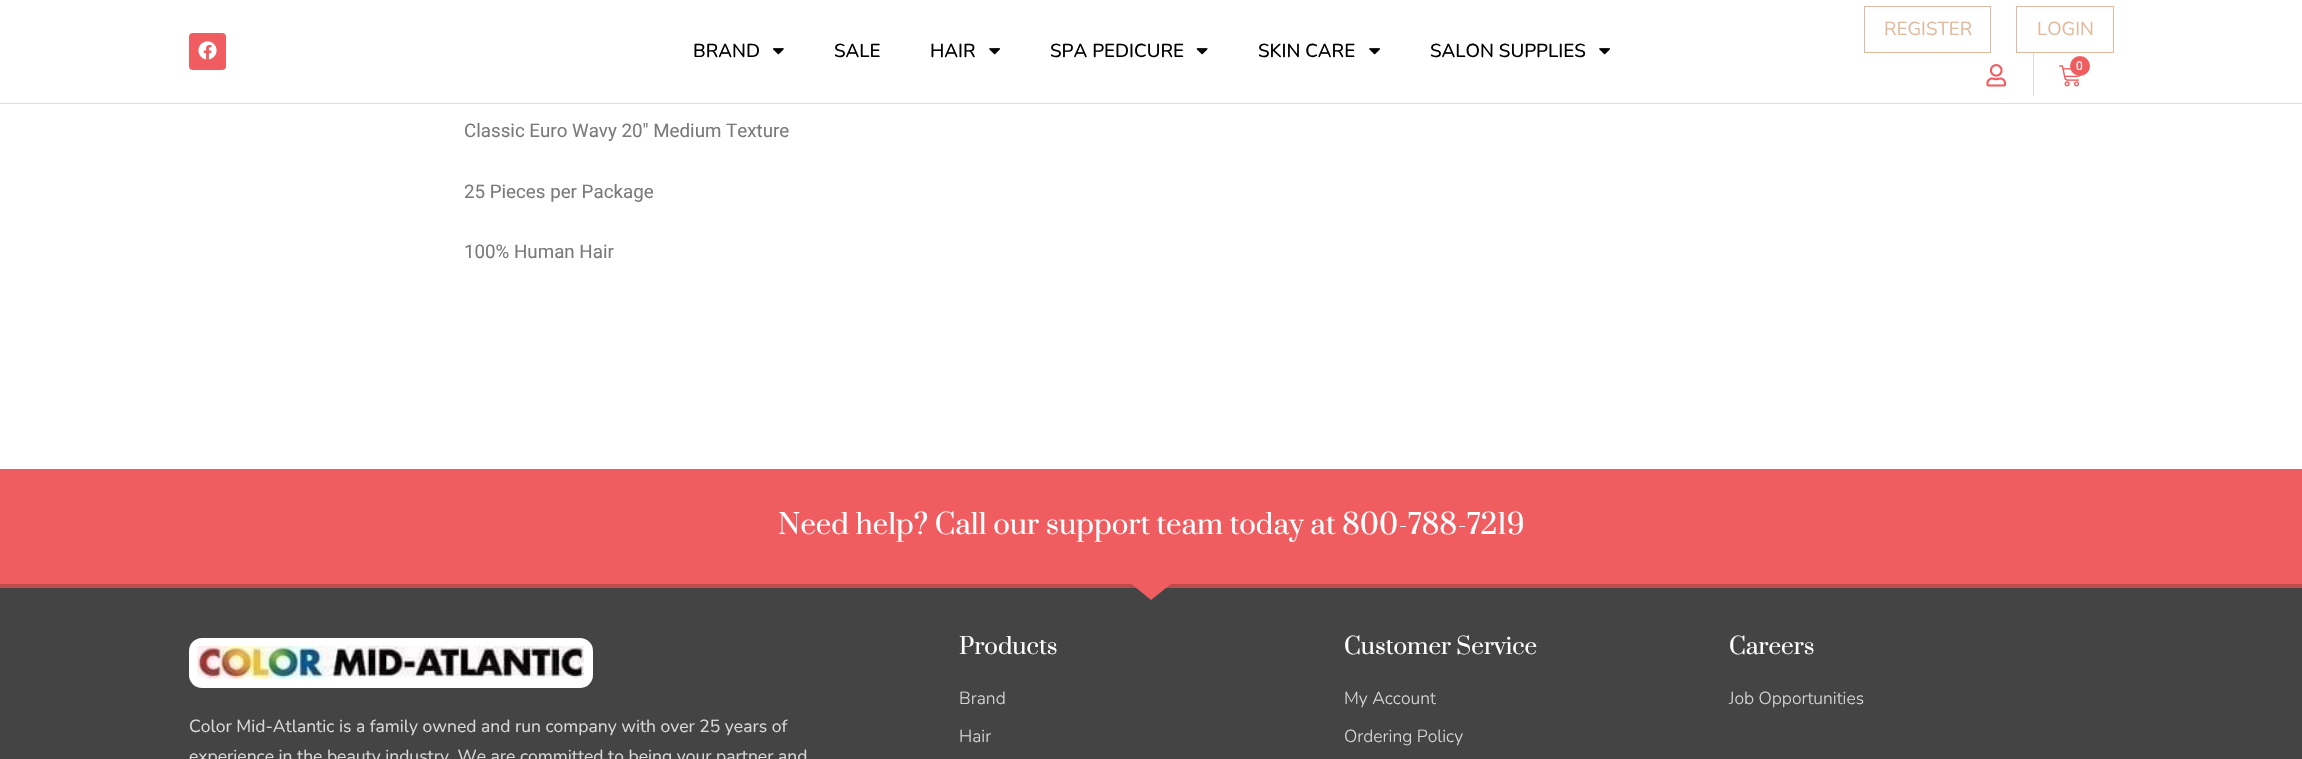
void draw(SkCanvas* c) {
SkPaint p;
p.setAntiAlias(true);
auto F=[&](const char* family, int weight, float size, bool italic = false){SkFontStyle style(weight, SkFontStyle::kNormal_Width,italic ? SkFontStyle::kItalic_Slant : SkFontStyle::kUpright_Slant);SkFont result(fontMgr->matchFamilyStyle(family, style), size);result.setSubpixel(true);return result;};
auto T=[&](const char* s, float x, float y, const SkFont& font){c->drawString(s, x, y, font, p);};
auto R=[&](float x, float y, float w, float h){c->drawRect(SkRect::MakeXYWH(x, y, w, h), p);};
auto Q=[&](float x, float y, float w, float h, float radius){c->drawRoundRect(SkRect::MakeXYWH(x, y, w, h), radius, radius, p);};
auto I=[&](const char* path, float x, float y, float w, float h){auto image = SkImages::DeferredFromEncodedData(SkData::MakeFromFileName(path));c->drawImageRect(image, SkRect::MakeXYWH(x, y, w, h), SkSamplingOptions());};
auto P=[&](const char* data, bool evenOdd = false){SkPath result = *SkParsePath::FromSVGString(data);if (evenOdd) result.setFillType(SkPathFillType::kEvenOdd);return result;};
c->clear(0xffffffff);
p.setColor(0xffdddddd);
R(0,103,2302,1);
p.setColor(0xffef5d60);
Q(189,33,37,37,4);
I("1.png",198,41,19,19);
auto f1 = F("Nunito",500,18.75);
p.setColor(0xff000000);
T("BRAND",693,57,f1);
I("2.png",772,48,12,7);
T("SALE",834,57,f1);
T("HAIR",930,57,f1);
I("3.png",989,48,11,7);
T("SPA PEDICURE",1050,57,f1);
I("4.png",1196,48,12,7);
T("SKIN CARE",1258,57,f1);
I("3.png",1369,48,11,7);
T("SALON SUPPLIES",1430,57,f1);
I("3.png",1599,48,11,7);
p.setStroke(true);
p.setStrokeWidth(1);
p.setColor(0xffdfba9f);
c->drawRect(SkRect::MakeXYWH(1864.5,6.5,126,46),p);
auto f2 = F("Nunito",400,18.75);
p.setStroke(false);
T("REGISTER",1884,35,f2);
p.setStroke(true);
c->drawRect(SkRect::MakeXYWH(2016.5,6.5,97,46),p);
p.setStroke(false);
T("LOGIN",2037,35,f2);
p.setColor(0xffdddddd);
R(2033,53,1,43);
I("5.png",1986,64,21,23);
I("6.png",2059,65,22,22);
p.setColor(0xffef5d60);
c->drawCircle(2080,66,10,p);
auto f3 = F("Roboto",400,12);
p.setColor(0xffffffff);
T("0",2076,70,f3);
auto f4 = F("Roboto",400,18.75);
p.setColor(0xff7a7a7a);
T("Classic Euro Wavy 20″ Medium Texture",464,137,f4);
T("25 Pieces per Package",464,198,f4);
T("100% Human Hair",464,258,f4);
p.setColor(0xffef5d60);
R(0,469,2302,115);
auto f5 = F("Prata",400,27.5);
p.setColor(0xffffffff);
T("Need help? Call our support team today at 800-788-7219",778,534,f5);
p.setColor(0xff444444);
R(0,588,2302,171);
p.setColor(0xffbd4a4c);
R(0,584,2302,4);
p.setColor(0xffef5d60);
c->drawPath(P("M1151 600l-19.5-16h39.5z"),p);
p.setColor(0xffffffff);
Q(189,638,404,50,13);
I("7.png",197,646,387,33);
auto f6 = F("Nunito",400,17.5);
p.setColor(0xffd8d8d8);
T("Color Mid-Atlantic is a family owned and run company with over 25 years of",189,732,f6);
T("experience in the beauty industry. We are committed to being your partner and",189,762,f6);
auto f7 = F("Prata",400,22.5);
p.setColor(0xffffffff);
T("Products",959,654,f7);
auto f8 = F("Nunito",300,17.5);
p.setColor(0xffd8d8d8);
T("Brand",959,704,f8);
T("Hair",959,742,f8);
p.setColor(0xffffffff);
T("Customer Service",1344,654,f7);
p.setColor(0xffd8d8d8);
T("My Account",1344,704,f8);
T("Ordering Policy",1344,742,f8);
p.setColor(0xffffffff);
T("Careers",1729,654,f7);
p.setColor(0xffd8d8d8);
T("Job Opportunities",1729,704,f8);
}
